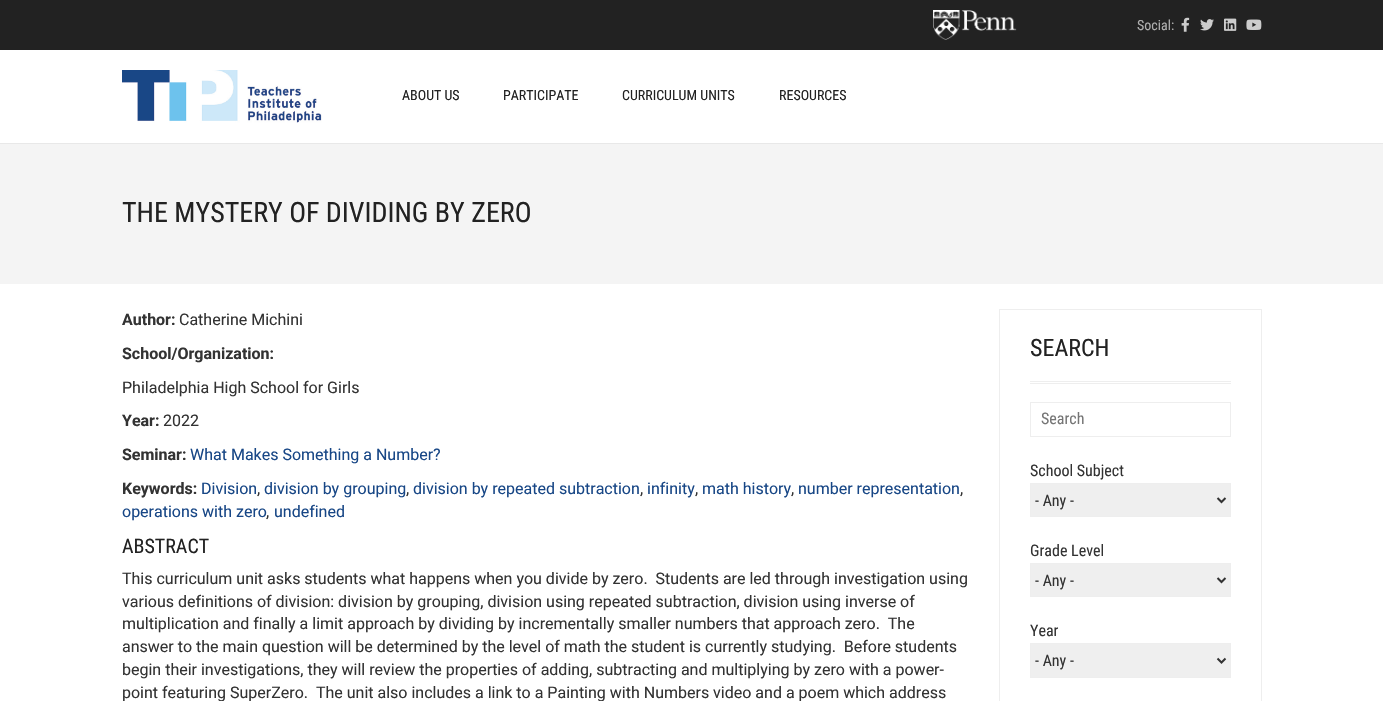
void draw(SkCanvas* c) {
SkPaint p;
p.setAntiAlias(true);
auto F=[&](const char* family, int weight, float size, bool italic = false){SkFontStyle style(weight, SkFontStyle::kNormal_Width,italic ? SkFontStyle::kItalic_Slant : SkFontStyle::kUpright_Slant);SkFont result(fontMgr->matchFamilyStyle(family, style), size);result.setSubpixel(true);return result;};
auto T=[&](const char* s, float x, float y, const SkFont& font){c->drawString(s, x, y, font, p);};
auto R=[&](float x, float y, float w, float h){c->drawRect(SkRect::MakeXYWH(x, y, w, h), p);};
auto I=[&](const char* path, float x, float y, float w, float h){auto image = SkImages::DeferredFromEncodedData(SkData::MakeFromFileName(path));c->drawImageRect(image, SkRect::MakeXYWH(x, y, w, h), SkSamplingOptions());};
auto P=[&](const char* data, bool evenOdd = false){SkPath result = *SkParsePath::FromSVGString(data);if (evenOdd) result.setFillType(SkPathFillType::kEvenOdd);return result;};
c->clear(0xffffffff);
p.setColor(0xffe8e8e8);
R(0,143,1383,1);
p.setColor(0xff222222);
R(0,0,1383,50);
I("1.png",933,10,84,30);
auto f1 = F("Roboto Condensed",400,14);
p.setColor(0xffafafaf);
T("Social:",1137,30,f1);
I("2.png",1181,17,9,15);
I("3.png",1200,19,14,12);
I("4.png",1224,18,13,13);
I("5.png",1246,19,16,11);
I("6.png",122,70,200,53);
p.setColor(0xff222222);
T("ABOUT US",402,100,f1);
T("PARTICIPATE",503,100,f1);
T("CURRICULUM UNITS",622,100,f1);
T("RESOURCES",779,100,f1);
p.setColor(0xfff4f4f4);
R(0,144,1383,140);
auto f2 = F("Roboto Condensed",400,28);
p.setColor(0xff222222);
T("THE MYSTERY OF DIVIDING BY ZERO",122,222,f2);
auto f3 = F("Roboto",700,16);
p.setColor(0xff333333);
T("Author:",122,325,f3);
auto f4 = F("Roboto",400,16);
T("Catherine Michini",179,325,f4);
T("School/Organization:",122,359,f3);
T("Philadelphia High School for Girls",122,393,f4);
T("Year:",122,426,f3);
T("2022",163,426,f4);
T("Seminar:",122,460,f3);
p.setColor(0xff184786);
T("What Makes Something a Number?",190,460,f4);
p.setColor(0xff333333);
T("Keywords:",122,494,f3);
p.setColor(0xff184786);
T("Division",201,494,f4);
p.setColor(0xff333333);
T(",",257,494,f4);
p.setColor(0xff184786);
T("division by grouping",264,494,f4);
p.setColor(0xff333333);
T(",",406,494,f4);
p.setColor(0xff184786);
T("division by repeated subtraction",413,494,f4);
p.setColor(0xff333333);
T(",",640,494,f4);
p.setColor(0xff184786);
T("infinity",647,494,f4);
p.setColor(0xff333333);
T(",",695,494,f4);
p.setColor(0xff184786);
T("math history",702,494,f4);
p.setColor(0xff333333);
T(",",791,494,f4);
p.setColor(0xff184786);
T("number representation",798,494,f4);
p.setColor(0xff333333);
T(",",960,494,f4);
p.setColor(0xff184786);
T("operations with zero",122,517,f4);
p.setColor(0xff333333);
T(",",266,517,f4);
p.setColor(0xff184786);
T("undefined",274,517,f4);
auto f5 = F("Roboto Condensed",400,20);
p.setColor(0xff222222);
T("ABSTRACT",122,553,f5);
p.setColor(0xff333333);
T("This curriculum unit asks students what happens when you divide by zero.  Students are led through investigation using",122,584,f4);
T("various definitions of division: division by grouping, division using repeated subtraction, division using inverse of",122,607,f4);
T("multiplication and finally a limit approach by dividing by incrementally smaller numbers that approach zero.  The",122,629,f4);
T("answer to the main question will be determined by the level of math the student is currently studying.  Before students",122,652,f4);
T("begin their investigations, they will review the properties of adding, subtracting and multiplying by zero with a power-",122,675,f4);
T("point featuring SuperZero.  The unit also includes a link to a Painting with Numbers video and a poem which address",122,698,f4);
p.setStroke(true);
p.setStrokeWidth(1);
p.setColor(0xffeeeeee);
c->drawRect(SkRect::MakeXYWH(999.5,309.5,262,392),p);
p.setStroke(false);
R(1030,383,201,1);
R(1030,381,201,1);
auto f6 = F("Roboto Condensed",400,24);
p.setColor(0xff222222);
T("SEARCH",1030,356,f6);
p.setStroke(true);
p.setColor(0xffeeeeee);
c->drawRect(SkRect::MakeXYWH(1030.5,402.5,200,34),p);
auto f7 = F("Roboto Condensed",400,16);
p.setStroke(false);
p.setColor(0xff757575);
T("Search",1041,424,f7);
p.setColor(0xff333333);
T("School Subject",1030,476,f7);
p.setColor(0xffefefef);
c->drawRect(SkRect::MakeXYWH(1030.5,483.5,200,33),p);
p.setStroke(true);
p.setColor(0xffeeeeee);
c->drawRect(SkRect::MakeXYWH(1030.5,483.5,200,33),p);
p.setStrokeWidth(2);
p.setColor(0xff333333);
c->drawPath(P("M1217.5 498l4 4l4-4"),p);
p.setStroke(false);
T("- Any -",1035,506,f7);
T("Grade Level",1030,556,f7);
p.setColor(0xffefefef);
c->drawRect(SkRect::MakeXYWH(1030.5,563.5,200,33),p);
p.setStroke(true);
p.setStrokeWidth(1);
p.setColor(0xffeeeeee);
c->drawRect(SkRect::MakeXYWH(1030.5,563.5,200,33),p);
p.setStrokeWidth(2);
p.setColor(0xff333333);
c->drawPath(P("M1217.5 578l4 4l4-4"),p);
p.setStroke(false);
T("- Any -",1035,586,f7);
T("Year",1030,636,f7);
p.setColor(0xffefefef);
c->drawRect(SkRect::MakeXYWH(1030.5,643.5,200,34),p);
p.setStroke(true);
p.setStrokeWidth(1);
p.setColor(0xffeeeeee);
c->drawRect(SkRect::MakeXYWH(1030.5,643.5,200,34),p);
p.setStrokeWidth(2);
p.setColor(0xff333333);
c->drawPath(P("M1217.5 658.5l4 4l4-4"),p);
p.setStroke(false);
T("- Any -",1035,666,f7);
}
